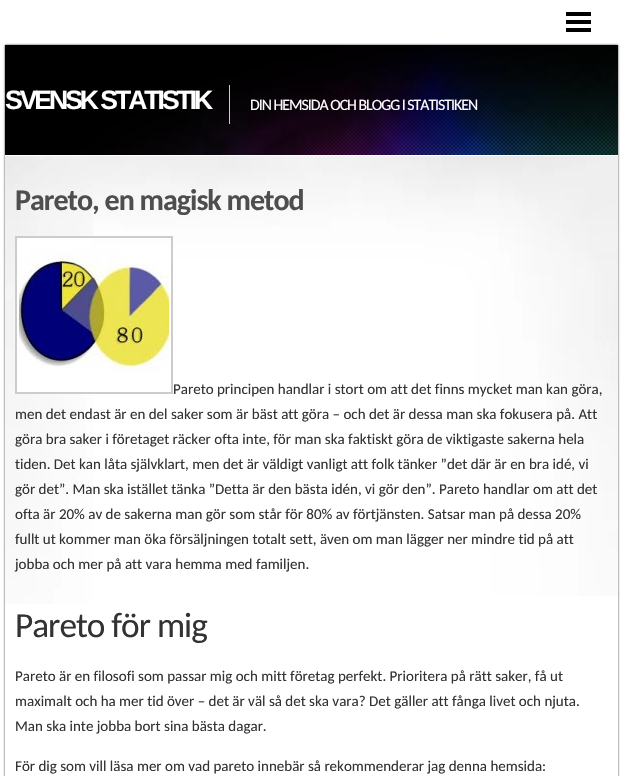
void draw(SkCanvas* c) {
SkPaint p;
p.setAntiAlias(true);
auto F=[&](const char* family, int weight, float size, bool italic = false){SkFontStyle style(weight, SkFontStyle::kNormal_Width,italic ? SkFontStyle::kItalic_Slant : SkFontStyle::kUpright_Slant);SkFont result(fontMgr->matchFamilyStyle(family, style), size);result.setSubpixel(true);return result;};
auto T=[&](const char* s, float x, float y, const SkFont& font){c->drawString(s, x, y, font, p);};
auto L=[&](const char* s, float x, float y, const SkFont& font, const SkPaint& ink, float letter, float word){std::vector<SkGlyphID> glyphs(font.countText(s, strlen(s), SkTextEncoding::kUTF8));std::vector<float> xs(glyphs.size());font.textToGlyphs(s, strlen(s), SkTextEncoding::kUTF8, glyphs);font.getXPos(glyphs, xs, x);float extra = 0;for (size_t i = 0; i < glyphs.size(); i++) {xs[i] += extra;extra += letter + word * (glyphs[i] == font.unicharToGlyph(' '));}c->drawTextBlob(SkTextBlob::MakeFromPosHGlyphs(glyphs, xs, y, font), 0, 0, ink);};
auto R=[&](float x, float y, float w, float h){c->drawRect(SkRect::MakeXYWH(x, y, w, h), p);};
auto I=[&](const char* path, float x, float y, float w, float h){auto image = SkImages::DeferredFromEncodedData(SkData::MakeFromFileName(path));c->drawImageRect(image, SkRect::MakeXYWH(x, y, w, h), SkSamplingOptions());};
c->clear(0xffffffff);
p.setColor(0xff000000);
R(566,12,25,20);
I("1.png",548,4,60,36);
p.setColor(0xff333333);
p.setMaskFilter(SkMaskFilter::MakeBlur(kNormal_SkBlurStyle, 1));
c->drawRect(SkRect::MakeXYWH(5,45,613,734),p);
p.setMaskFilter(nullptr);
I("2.png",5,45,613,110);
auto f1 = F("Liberation Sans",700,26.5);
p.setColor(0xffffffff);
L("SVENSK STATISTIK",5,109,f1,p,-3,0);
p.setColor(0xffcccccc);
R(229,85,1,39);
auto f2 = F("Carlito",400,15.8);
p.setColor(0xffffffff);
L("DIN HEMSIDA OCH BLOGG I STATISTIKEN",250,110,f2,p,-1,0);
R(5,155,613,621);
I("3.png",93,156,525,440);
I("4.png",5,156,88,448);
auto f3 = F("Carlito",700,30);
p.setColor(0xff4e4e4e);
L("Pareto, en magisk metod",15,210,f3,p,-1,0);
p.setColor(0xffffffff);
R(17,238,76,154);
p.setStroke(true);
p.setStrokeWidth(2);
p.setColor(0xffcccccc);
c->drawRect(SkRect::MakeXYWH(16,237,156,156),p);
I("5.png",19,250,150,123);
auto f4 = F("Carlito",400,15);
p.setStroke(false);
p.setColor(0xff333333);
T("Pareto principen handlar i stort om att det finns mycket man kan göra,",173,394,f4);
T("men det endast är en del saker som är bäst att göra – och det är dessa man ska fokusera på. Att",15,419,f4);
T("göra bra saker i företaget räcker ofta inte, för man ska faktiskt göra de viktigaste sakerna hela",15,444,f4);
T("tiden. Det kan låta självklart, men det är väldigt vanligt att folk tänker ”det där är en bra idé, vi",15,469,f4);
T("gör det”. Man ska istället tänka ”Detta är den bästa idén, vi gör den”. Pareto handlar om att det",15,494,f4);
T("ofta är 20% av de sakerna man gör som står för 80% av förtjänsten. Satsar man på dessa 20%",15,519,f4);
T("fullt ut kommer man öka försäljningen totalt sett, även om man lägger ner mindre tid på att",15,544,f4);
T("jobba och mer på att vara hemma med familjen.",15,569,f4);
auto f5 = F("Carlito",400,35.25);
L("Pareto för mig",15,637,f5,p,-1,0);
T("Pareto är en filosofi som passar mig och mitt företag perfekt. Prioritera på rätt saker, få ut",15,681,f4);
T("maximalt och ha mer tid över – det är väl så det ska vara? Det gäller att fånga livet och njuta.",15,706,f4);
T("Man ska inte jobba bort sina bästa dagar.",15,731,f4);
T("För dig som vill läsa mer om vad pareto innebär så rekommenderar jag denna hemsida:",15,771,f4);
}
